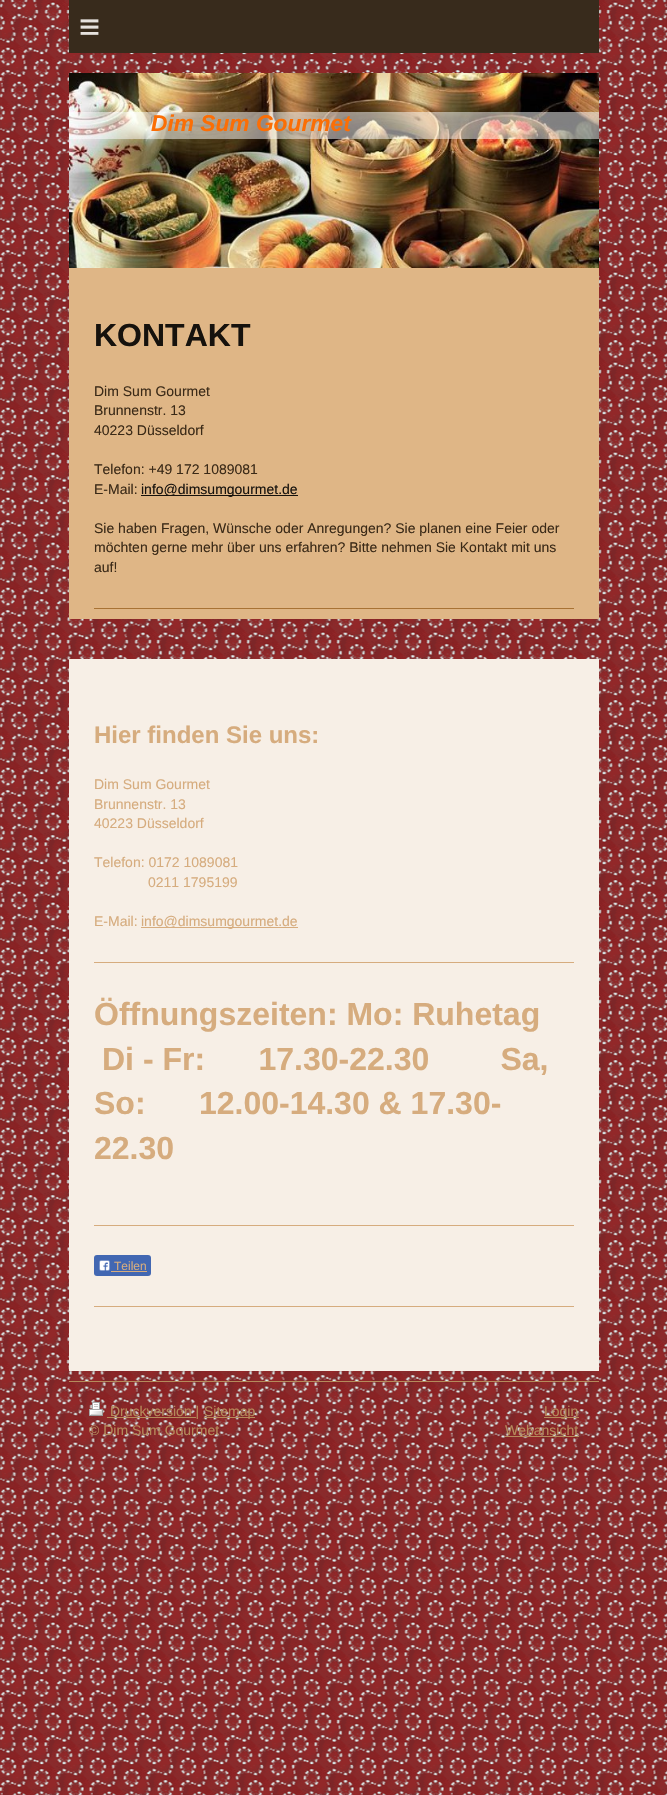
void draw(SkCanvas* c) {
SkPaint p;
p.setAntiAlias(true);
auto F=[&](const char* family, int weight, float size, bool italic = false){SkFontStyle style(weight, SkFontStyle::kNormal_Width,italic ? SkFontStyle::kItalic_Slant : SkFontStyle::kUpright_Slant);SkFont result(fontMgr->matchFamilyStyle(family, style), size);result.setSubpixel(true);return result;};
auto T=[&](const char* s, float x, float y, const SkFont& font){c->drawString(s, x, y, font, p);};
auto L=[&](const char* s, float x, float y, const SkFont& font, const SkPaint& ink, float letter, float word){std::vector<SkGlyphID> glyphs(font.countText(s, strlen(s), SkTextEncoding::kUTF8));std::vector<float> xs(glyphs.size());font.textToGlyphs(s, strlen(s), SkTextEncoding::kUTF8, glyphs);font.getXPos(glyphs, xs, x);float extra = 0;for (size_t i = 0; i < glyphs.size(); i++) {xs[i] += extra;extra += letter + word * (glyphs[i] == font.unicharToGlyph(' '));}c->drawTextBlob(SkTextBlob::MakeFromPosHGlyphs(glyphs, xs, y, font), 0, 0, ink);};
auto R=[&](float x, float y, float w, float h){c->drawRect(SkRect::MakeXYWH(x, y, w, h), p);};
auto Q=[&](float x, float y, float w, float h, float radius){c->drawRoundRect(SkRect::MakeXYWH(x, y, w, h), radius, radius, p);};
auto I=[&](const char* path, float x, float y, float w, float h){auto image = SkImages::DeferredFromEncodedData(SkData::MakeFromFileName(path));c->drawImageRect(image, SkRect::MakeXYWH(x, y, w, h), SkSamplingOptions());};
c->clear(0xffffffff);
I("1.png",0,0,667,1795);
p.setColor(0xff382b1c);
R(69,0,530,53);
auto f1 = F("Liberation Sans",400,36);
p.setColor(0xffe6e2de);
L("≡",79,39,f1,p,10,0);
p.setColor(0xffdfb686);
R(69,268,530,351);
I("2.png",69,73,530,195);
p.setColor(0x80ffffff);
R(69,112,530,27);
auto f2 = F("Liberation Sans",700,22.75,true);
p.setColor(0xfffb6e05);
T("Dim Sum Gourmet",151,131,f2);
auto f3 = F("Liberation Sans",700,32);
p.setColor(0xff16120d);
T("KONTAKT",94,346,f3);
auto f4 = F("Liberation Sans",400,14);
p.setColor(0xff3b2a17);
T("Dim Sum Gourmet",94,396,f4);
T("Brunnenstr. 13",94,415,f4);
T("40223 Düsseldorf",94,435,f4);
T("Telefon: +49 172 1089081",94,474,f4);
T("E-Mail:",94,494,f4);
p.setColor(0xff16120d);
R(141,495,157,1);
T("info@dimsumgourmet.de",141,494,f4);
p.setColor(0xff3b2a17);
T("Sie haben Fragen, Wünsche oder Anregungen? Sie planen eine Feier oder",94,533,f4);
T("möchten gerne mehr über uns erfahren? Bitte nehmen Sie Kontakt mit uns",94,552,f4);
T("auf!",94,572,f4);
p.setColor(0xffa87234);
R(94,608,480,1);
p.setColor(0xfff7efe6);
R(69,659,530,712);
auto f5 = F("Liberation Sans",700,24);
p.setColor(0xffd6ac7e);
T("Hier finden Sie uns:",94,743,f5);
T("Dim Sum Gourmet",94,789,f4);
T("Brunnenstr. 13",94,809,f4);
T("40223 Düsseldorf",94,828,f4);
T("Telefon: 0172 1089081",94,867,f4);
T("0211 1795199",148,887,f4);
T("E-Mail:",94,926,f4);
R(141,927,157,1);
T("info@dimsumgourmet.de",141,926,f4);
R(94,962,480,1);
T("Öffnungszeiten: Mo: Ruhetag",94,1025,f3);
T("Di - Fr:      17.30-22.30        Sa,",102,1070,f3);
T("So:      12.00-14.30 & 17.30-",94,1114,f3);
T("22.30",94,1159,f3);
R(94,1225,480,1);
p.setColor(0xff4267b2);
Q(94,1255,57,21,3);
I("3.png",99,1260,11,11);
auto f6 = F("Liberation Sans",400,12);
p.setColor(0xffd6ac7e);
T("Teilen",114,1270,f6);
R(111,1271,36,1);
R(94,1306,480,1);
p.setColor(0xffb58b5b);
R(69,1381,530,1);
I("4.png",89,1402,14,14);
R(107,1417,89,1);
T("Druckversion |",110,1416,f4);
R(204,1417,51,1);
T("Sitemap",204,1416,f4);
c->save();
c->clipRect(SkRect::MakeXYWH(89,1402,490,39));
T("© Dim Sum Gourmet",89,1435,f4);
c->restore();
R(544,1417,35,1);
T("Login",544,1416,f4);
T("Webansicht",505,1435,f4);
R(505,1436,74,1);
}
